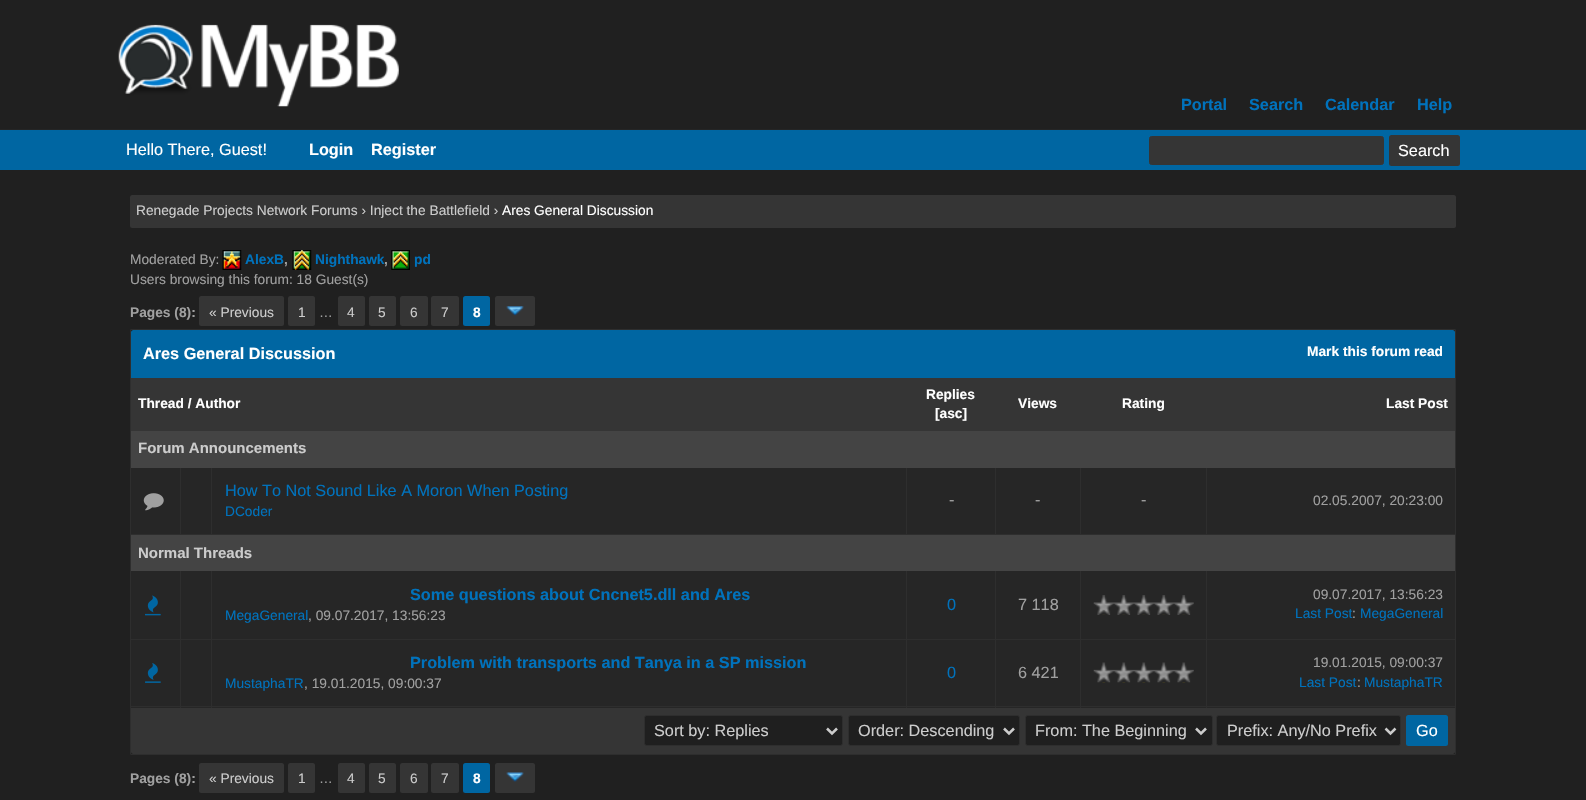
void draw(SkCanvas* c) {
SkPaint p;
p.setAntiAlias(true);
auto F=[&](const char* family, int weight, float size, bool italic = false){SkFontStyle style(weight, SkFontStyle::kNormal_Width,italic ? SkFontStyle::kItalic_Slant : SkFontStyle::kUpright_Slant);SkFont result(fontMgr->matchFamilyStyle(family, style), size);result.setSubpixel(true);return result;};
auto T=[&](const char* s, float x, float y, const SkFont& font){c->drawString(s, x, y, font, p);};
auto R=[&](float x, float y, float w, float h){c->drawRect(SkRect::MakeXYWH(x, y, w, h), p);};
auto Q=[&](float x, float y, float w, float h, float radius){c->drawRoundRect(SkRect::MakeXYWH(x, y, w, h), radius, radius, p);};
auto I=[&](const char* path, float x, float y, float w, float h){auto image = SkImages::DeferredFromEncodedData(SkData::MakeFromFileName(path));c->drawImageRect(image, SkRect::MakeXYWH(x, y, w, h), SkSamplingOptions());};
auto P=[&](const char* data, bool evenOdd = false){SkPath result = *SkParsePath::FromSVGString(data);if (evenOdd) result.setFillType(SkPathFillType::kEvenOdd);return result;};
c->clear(0xff202020);
p.setColor(0xff252525);
R(0,129,1586,1);
I("1.png",118,24,281,83);
auto f1 = F("Liberation Sans",700,16.25);
p.setColor(0xff0072bc);
T("Portal",1181,110,f1);
T("Search",1249,110,f1);
T("Calendar",1325,110,f1);
T("Help",1417,110,f1);
p.setColor(0xff0066a2);
R(0,130,1586,40);
auto f2 = F("Liberation Sans",400,16.25);
p.setColor(0xffffffff);
T("Hello There, Guest!",126,155,f2);
T("Login",309,155,f1);
T("Register",371,155,f1);
p.setColor(0xff353535);
c->drawRoundRect(SkRect::MakeXYWH(1149.5,136.5,234,28),2,2,p);
p.setStroke(true);
p.setStrokeWidth(1);
c->drawRoundRect(SkRect::MakeXYWH(1149.5,136.5,234,28),2,2,p);
p.setStroke(false);
Q(1389,135,71,31,2.5);
p.setColor(0xffffffff);
T("Search",1398,156,f2);
p.setColor(0xff353535);
Q(130,195,1326,33,2.5);
auto f3 = F("Liberation Sans",400,13.75);
p.setColor(0xffcccccc);
T("Renegade Projects Network Forums › Inject the Battlefield ›",136,215,f3);
p.setColor(0xffffffff);
T("Ares General Discussion",502,215,f3);
p.setColor(0xffa0a0a0);
T("Moderated By:",130,264,f3);
I("2.png",222,250,20,20);
auto f4 = F("Liberation Sans",700,13.75);
p.setColor(0xff0072bc);
T("AlexB",245,264,f4);
p.setColor(0xffa0a0a0);
T(",",284,264,f4);
I("3.png",292,250,20,20);
p.setColor(0xff0072bc);
T("Nighthawk",315,264,f4);
p.setColor(0xffa0a0a0);
T(",",384,264,f4);
I("4.png",391,250,19,20);
p.setColor(0xff0072bc);
T("pd",414,264,f4);
p.setColor(0xffa0a0a0);
T("Users browsing this forum: 18 Guest(s)",130,284,f3);
p.setColor(0xff353535);
Q(495,296,40,30,2.5);
p.setColor(0xffa0a0a0);
T("Pages (8):",130,317,f4);
p.setColor(0xff353535);
Q(199,296,85,30,2.5);
p.setColor(0xffcccccc);
T("« Previous",209,317,f3);
p.setColor(0xff353535);
Q(288,296,27,30,2.5);
p.setColor(0xffcccccc);
T("1",298,317,f3);
p.setColor(0xffa0a0a0);
T("…",319,317,f3);
p.setColor(0xff353535);
Q(338,296,27,30,2.5);
p.setColor(0xffcccccc);
T("4",347,317,f3);
p.setColor(0xff353535);
Q(369,296,27,30,2.5);
p.setColor(0xffcccccc);
T("5",378,317,f3);
p.setColor(0xff353535);
Q(400,296,28,30,2.5);
p.setColor(0xffcccccc);
T("6",410,317,f3);
p.setColor(0xff353535);
Q(431,296,28,30,2.5);
p.setColor(0xffcccccc);
T("7",441,317,f3);
p.setColor(0xff0066a2);
Q(463,296,27,30,2.5);
p.setColor(0xffffffff);
T("8",473,317,f4);
I("5.png",506,306,18,10);
p.setStroke(true);
p.setColor(0xff2e2e2e);
c->drawRoundRect(SkRect::MakeXYWH(130.5,329.5,1325,425),.5,.5,p);
p.setStroke(false);
p.setColor(0xff0066a2);
c->drawPath(P("M133.5 330h1319c1.5 0 2.5 1 2.5 2.5v45.5h-1324v-45.5c0-1.5 1-2.5 2.5-2.5z"),p);
p.setColor(0xffffffff);
T("Ares General Discussion",143,359,f1);
T("Mark this forum read",1307,356,f4);
p.setColor(0xff353535);
R(131,378,1324,53);
p.setColor(0xffffffff);
T("Thread / Author",138,408,f4);
T("Replies",926,399,f4);
T("[asc]",935,418,f4);
T("Views",1018,408,f4);
T("Rating",1122,408,f4);
T("Last Post",1386,408,f4);
p.setColor(0xff444444);
R(131,431,1324,37);
auto f5 = F("Liberation Sans",700,15);
p.setColor(0xffcccccc);
T("Forum Announcements",138,453,f5);
p.setColor(0xff262626);
R(131,468,49,66);
p.setColor(0xff2e2e2e);
R(131,534,1324,1);
I("6.png",143,493,21,18);
p.setColor(0xff262626);
R(181,468,30,66);
p.setColor(0xff2e2e2e);
R(180,468,1,67);
p.setColor(0xff262626);
R(212,468,694,66);
p.setColor(0xff2e2e2e);
R(211,468,1,67);
p.setColor(0xff0072bc);
T("How To Not Sound Like A Moron When Posting",225,496,f2);
T("DCoder",225,516,f3);
p.setColor(0xff262626);
R(907,468,88,66);
p.setColor(0xff2e2e2e);
R(906,468,1,67);
p.setColor(0xffa0a0a0);
T("-",949,505,f2);
p.setColor(0xff262626);
R(996,468,84,66);
p.setColor(0xff2e2e2e);
R(995,468,1,67);
p.setColor(0xffa0a0a0);
T("-",1035,505,f2);
p.setColor(0xff262626);
R(1081,468,125,66);
p.setColor(0xff2e2e2e);
R(1080,468,1,67);
p.setColor(0xffa0a0a0);
T("-",1141,505,f2);
p.setColor(0xff262626);
R(1207,468,248,66);
p.setColor(0xff2e2e2e);
R(1206,468,1,67);
p.setColor(0xffa0a0a0);
T("02.05.2007, 20:23:00",1313,505,f3);
p.setColor(0xff444444);
R(131,535,1324,36);
p.setColor(0xffcccccc);
T("Normal Threads",138,558,f5);
p.setColor(0xff262626);
R(131,571,49,68);
p.setColor(0xff2e2e2e);
R(131,639,1324,1);
I("7.png",145,595,16,21);
p.setColor(0xff262626);
R(181,571,30,68);
p.setColor(0xff2e2e2e);
R(180,571,1,69);
p.setColor(0xff262626);
R(212,571,694,68);
p.setColor(0xff2e2e2e);
R(211,571,1,69);
p.setColor(0xff0072bc);
T("Some questions about Cncnet5.dll and Ares",410,600,f1);
T("MegaGeneral",225,620,f3);
p.setColor(0xffa0a0a0);
T(", 09.07.2017, 13:56:23",308,620,f3);
p.setColor(0xff262626);
R(907,571,88,68);
p.setColor(0xff2e2e2e);
R(906,571,1,69);
p.setColor(0xff0072bc);
T("0",947,610,f2);
p.setColor(0xff262626);
R(996,571,84,68);
p.setColor(0xff2e2e2e);
R(995,571,1,69);
p.setColor(0xffa0a0a0);
T("7 118",1018,610,f2);
p.setColor(0xff262626);
R(1081,571,125,68);
p.setColor(0xff2e2e2e);
R(1080,571,1,69);
I("8.png",1093,595,101,20);
p.setColor(0xff262626);
R(1207,571,248,68);
p.setColor(0xff2e2e2e);
R(1206,571,1,69);
p.setColor(0xffa0a0a0);
T("09.07.2017, 13:56:23",1313,599,f3);
p.setColor(0xff0072bc);
T("Last Post",1295,618,f3);
p.setColor(0xffa0a0a0);
T(":",1352,618,f3);
p.setColor(0xff0072bc);
T("MegaGeneral",1360,618,f3);
p.setColor(0xff262626);
R(131,640,49,68);
p.setColor(0xff2e2e2e);
R(131,706,49,1);
I("9.png",145,663,16,20);
p.setColor(0xff262626);
R(181,640,30,68);
p.setColor(0xff2e2e2e);
R(180,706,31,1);
R(180,640,1,68);
p.setColor(0xff262626);
R(212,640,694,68);
p.setColor(0xff2e2e2e);
R(211,706,695,1);
R(211,640,1,68);
p.setColor(0xff0072bc);
T("Problem with transports and Tanya in a SP mission",410,668,f1);
T("MustaphaTR",225,688,f3);
p.setColor(0xffa0a0a0);
T(", 19.01.2015, 09:00:37",304,688,f3);
p.setColor(0xff262626);
R(907,640,88,68);
p.setColor(0xff2e2e2e);
R(906,706,89,1);
R(906,640,1,68);
p.setColor(0xff0072bc);
T("0",947,678,f2);
p.setColor(0xff262626);
R(996,640,84,68);
p.setColor(0xff2e2e2e);
R(995,706,85,1);
R(995,640,1,68);
p.setColor(0xffa0a0a0);
T("6 421",1018,678,f2);
p.setColor(0xff262626);
R(1081,640,125,68);
p.setColor(0xff2e2e2e);
R(1080,706,126,1);
R(1080,640,1,68);
I("10.png",1093,662,101,21);
p.setColor(0xff262626);
R(1207,640,248,68);
p.setColor(0xff2e2e2e);
R(1206,706,249,1);
R(1206,640,1,68);
p.setColor(0xffa0a0a0);
T("19.01.2015, 09:00:37",1313,667,f3);
p.setColor(0xff0072bc);
T("Last Post",1299,687,f3);
p.setColor(0xffa0a0a0);
T(":",1357,687,f3);
p.setColor(0xff0072bc);
T("MustaphaTR",1364,687,f3);
p.setColor(0xff353535);
c->drawPath(P("M131 708h1324v43.5c0 1.5-1 2.5-2.5 2.5h-1319c-1.5 0-2.5-1-2.5-2.5z"),p);
p.setColor(0xff1f1f1f);
c->drawRoundRect(SkRect::MakeXYWH(644.5,715.5,198,30),2,2,p);
p.setStroke(true);
p.setColor(0xff2e2e2e);
c->drawRoundRect(SkRect::MakeXYWH(644.5,715.5,198,30),2,2,p);
p.setStrokeWidth(2.5);
p.setColor(0xffcccccc);
c->drawPath(P("M827 728.5l5 5l5-5"),p);
p.setStroke(false);
T("Sort by: Replies",654,736,f2);
p.setColor(0xff1f1f1f);
c->drawRoundRect(SkRect::MakeXYWH(848.5,715.5,171,30),2,2,p);
p.setStroke(true);
p.setStrokeWidth(1);
p.setColor(0xff2e2e2e);
c->drawRoundRect(SkRect::MakeXYWH(848.5,715.5,171,30),2,2,p);
p.setStrokeWidth(2.5);
p.setColor(0xffcccccc);
c->drawPath(P("M1004 728.5l5 5l5-5"),p);
p.setStroke(false);
T("Order: Descending",858,736,f2);
p.setColor(0xff1f1f1f);
c->drawRoundRect(SkRect::MakeXYWH(1025.5,715.5,187,30),2,2,p);
p.setStroke(true);
p.setStrokeWidth(1);
p.setColor(0xff2e2e2e);
c->drawRoundRect(SkRect::MakeXYWH(1025.5,715.5,187,30),2,2,p);
p.setStrokeWidth(2.5);
p.setColor(0xffcccccc);
c->drawPath(P("M1196 728.5l5 5l5-5"),p);
p.setStroke(false);
T("From: The Beginning",1035,736,f2);
p.setColor(0xff1f1f1f);
c->drawRoundRect(SkRect::MakeXYWH(1216.5,715.5,184,30),2,2,p);
p.setStroke(true);
p.setStrokeWidth(1);
p.setColor(0xff2e2e2e);
c->drawRoundRect(SkRect::MakeXYWH(1216.5,715.5,184,30),2,2,p);
p.setStrokeWidth(2.5);
p.setColor(0xffcccccc);
c->drawPath(P("M1385.5 728.5l5 5l5-5"),p);
p.setStroke(false);
T("Prefix: Any/No Prefix",1227,736,f2);
p.setColor(0xff0066a2);
Q(1406,715,42,31,2.5);
p.setColor(0xffffffff);
T("Go",1416,736,f2);
p.setColor(0xff353535);
Q(495,763,40,30,2.5);
p.setColor(0xffa0a0a0);
T("Pages (8):",130,783,f4);
p.setColor(0xff353535);
Q(199,763,85,30,2.5);
p.setColor(0xffcccccc);
T("« Previous",209,783,f3);
p.setColor(0xff353535);
Q(288,763,27,30,2.5);
p.setColor(0xffcccccc);
T("1",298,783,f3);
p.setColor(0xffa0a0a0);
T("…",319,783,f3);
p.setColor(0xff353535);
Q(338,763,27,30,2.5);
p.setColor(0xffcccccc);
T("4",347,783,f3);
p.setColor(0xff353535);
Q(369,763,27,30,2.5);
p.setColor(0xffcccccc);
T("5",378,783,f3);
p.setColor(0xff353535);
Q(400,763,28,30,2.5);
p.setColor(0xffcccccc);
T("6",410,783,f3);
p.setColor(0xff353535);
Q(431,763,28,30,2.5);
p.setColor(0xffcccccc);
T("7",441,783,f3);
p.setColor(0xff0066a2);
Q(463,763,27,30,2.5);
p.setColor(0xffffffff);
T("8",473,783,f4);
I("11.png",506,772,18,10);
}
